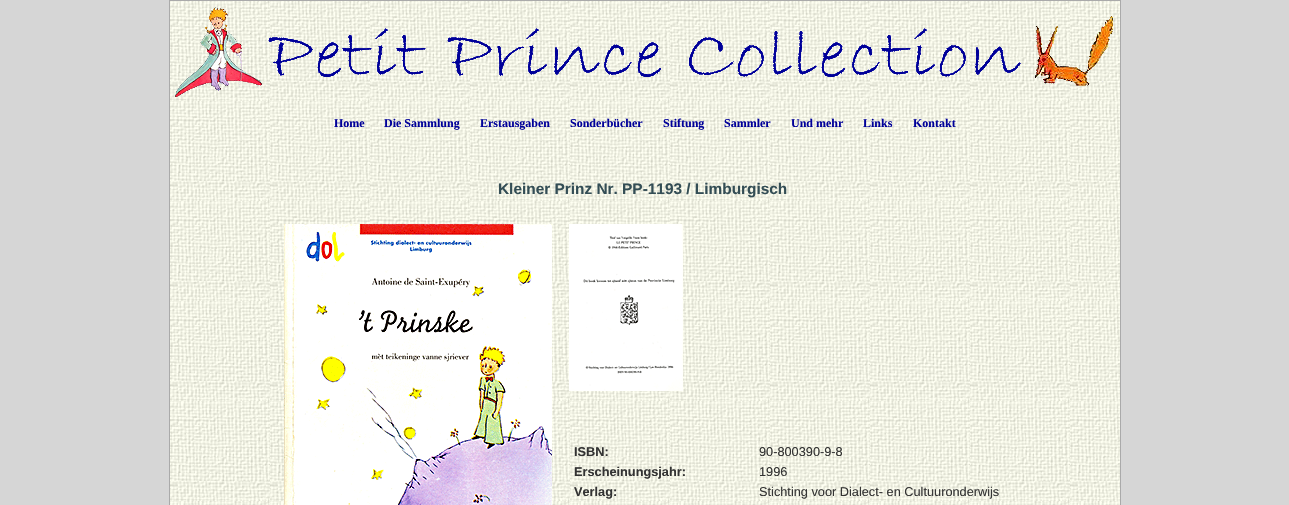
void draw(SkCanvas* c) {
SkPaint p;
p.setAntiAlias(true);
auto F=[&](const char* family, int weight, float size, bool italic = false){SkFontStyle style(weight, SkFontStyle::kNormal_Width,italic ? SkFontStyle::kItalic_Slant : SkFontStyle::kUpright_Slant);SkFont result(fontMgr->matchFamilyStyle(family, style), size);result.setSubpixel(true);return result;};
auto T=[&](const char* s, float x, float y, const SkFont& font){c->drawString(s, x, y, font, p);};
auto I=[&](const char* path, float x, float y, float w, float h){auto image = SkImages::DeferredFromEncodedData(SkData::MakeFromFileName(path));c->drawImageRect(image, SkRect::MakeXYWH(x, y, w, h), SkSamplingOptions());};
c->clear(0xffd6d6d6);
I("1.png",170,1,950,504);
p.setStroke(true);
p.setStrokeWidth(1);
p.setColor(0xffaaaaaa);
c->drawRect(SkRect::MakeXYWH(169.5,.5,951,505),p);
I("2.png",175,7,938,90);
auto f1 = F("Liberation Serif",700,12);
p.setStroke(false);
p.setColor(0xff000099);
T("Home",334,127,f1);
T("Die Sammlung",384,127,f1);
T("Erstausgaben",480,127,f1);
T("Sonderbücher",570,127,f1);
T("Stiftung",663,127,f1);
T("Sammler",724,127,f1);
T("Und mehr",791,127,f1);
T("Links",863,127,f1);
T("Kontakt",913,127,f1);
auto f2 = F("Liberation Sans",700,15.4);
p.setColor(0xff334d55);
T("Kleiner Prinz Nr. PP-1193 / Limburgisch",498,194,f2);
I("3.png",284,224,268,281);
I("4.png",569,224,114,167);
auto f3 = F("Liberation Sans",700,12.75);
p.setColor(0xff333333);
T("ISBN:",574,456,f3);
auto f4 = F("Liberation Sans",400,12.75);
T("90-800390-9-8",759,456,f4);
T("Erscheinungsjahr:",574,476,f3);
T("1996",759,476,f4);
T("Verlag:",574,496,f3);
T("Stichting voor Dialect- en Cultuuronderwijs",759,496,f4);
}
